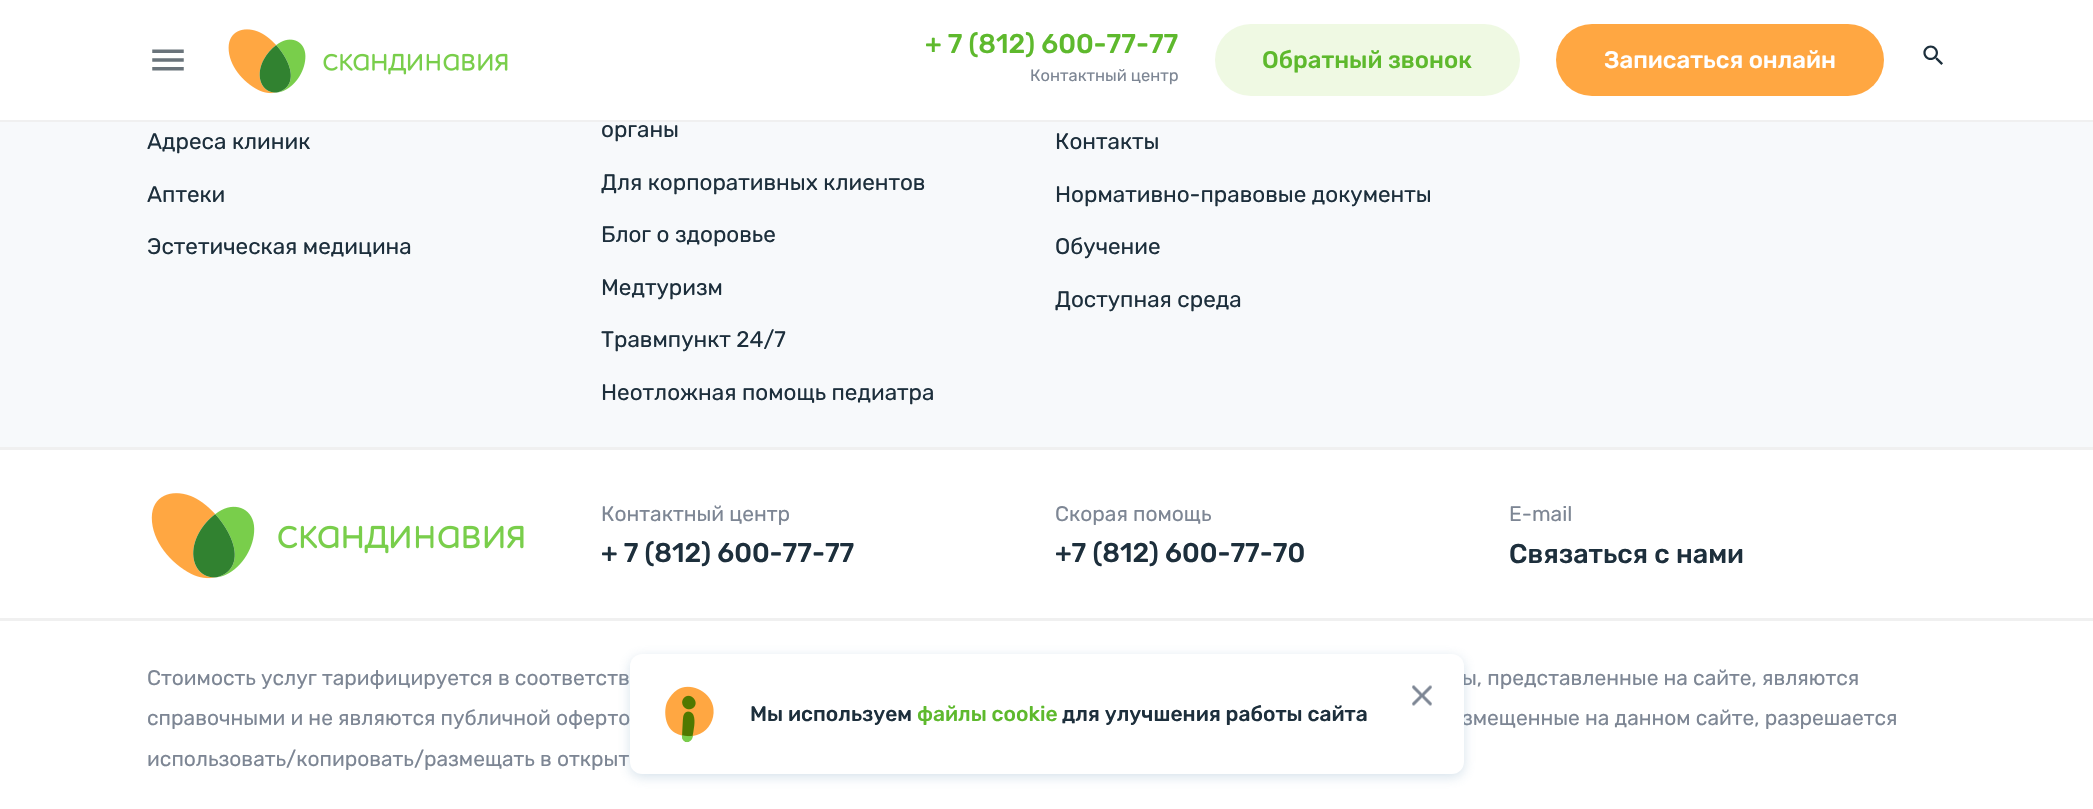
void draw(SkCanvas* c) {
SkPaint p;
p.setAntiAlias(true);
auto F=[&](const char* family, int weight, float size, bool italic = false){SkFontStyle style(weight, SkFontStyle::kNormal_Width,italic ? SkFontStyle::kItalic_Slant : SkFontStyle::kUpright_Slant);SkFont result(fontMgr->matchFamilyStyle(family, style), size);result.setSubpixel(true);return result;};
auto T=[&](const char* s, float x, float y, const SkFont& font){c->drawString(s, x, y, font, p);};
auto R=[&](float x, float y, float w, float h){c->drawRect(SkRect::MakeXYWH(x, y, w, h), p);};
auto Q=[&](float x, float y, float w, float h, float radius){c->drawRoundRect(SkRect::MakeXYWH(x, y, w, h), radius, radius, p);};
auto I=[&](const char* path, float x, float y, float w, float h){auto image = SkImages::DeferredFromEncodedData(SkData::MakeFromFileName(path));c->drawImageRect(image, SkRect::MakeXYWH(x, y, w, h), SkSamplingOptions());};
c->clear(0xffffffff);
p.setColor(0xfff0f0f0);
R(0,120,2093,2);
I("1.png",152,49,32,22);
I("2.png",228,29,280,65);
auto f1 = F("Rubik",500,27);
p.setColor(0xff5eb92d);
T("+ 7 (812) 600-77-77",925,53,f1);
auto f2 = F("Rubik",400,16.5);
p.setColor(0xff7d8694);
T("Контактный центр",1030,81,f2);
p.setColor(0xffeff9e3);
Q(1215,24,305,72,36);
auto f3 = F("Rubik",500,24);
p.setColor(0xff5eb92d);
T("Обратный звонок",1262,68,f3);
p.setColor(0xffffa742);
Q(1556,24,328,72,36);
p.setColor(0xffffffff);
T("Записаться онлайн",1604,68,f3);
I("3.png",1923,45,20,20);
p.setColor(0xfff7f9fb);
R(0,122,2093,325);
auto f4 = F("Rubik",400,22.5);
p.setColor(0xff1d2f3c);
T("Адреса клиник",147,149,f4);
T("Аптеки",147,202,f4);
T("Эстетическая медицина",147,254,f4);
T("органы",601,137,f4);
T("Для корпоративных клиентов",601,190,f4);
T("Блог о здоровье",601,242,f4);
T("Медтуризм",601,295,f4);
T("Травмпункт 24/7",601,347,f4);
T("Неотложная помощь педиатра",601,400,f4);
T("Контакты",1055,149,f4);
T("Нормативно-правовые документы",1055,202,f4);
T("Обучение",1055,254,f4);
T("Доступная среда",1055,307,f4);
p.setColor(0xfff0f0f0);
R(0,447,2093,3);
I("4.png",151,493,373,86);
auto f5 = F("Rubik",400,21);
p.setColor(0xff7d8694);
T("Контактный центр",601,521,f5);
p.setColor(0xff1d2f3c);
T("+ 7 (812) 600-77-77",601,562,f1);
p.setColor(0xff7d8694);
T("Скорая помощь",1055,521,f5);
p.setColor(0xff1d2f3c);
T("+7 (812) 600-77-70",1055,562,f1);
p.setColor(0xff7d8694);
T("E-mail",1509,521,f5);
p.setColor(0xff1d2f3c);
T("Связаться с нами",1509,563,f1);
p.setColor(0xfff0f0f0);
R(0,618,2093,3);
p.setColor(0xff7d8694);
T("Стоимость услуг тарифицируется в соответств",147,685,f5);
T("ы, представленные на сайте, являются",1462,685,f5);
T("справочными и не являются публичной оферто",147,725,f5);
T("змещенные на данном сайте, разрешается",1462,725,f5);
T("использовать/копировать/размещать в открыт",147,766,f5);
p.setColor(0x4d78a0be);
p.setMaskFilter(SkMaskFilter::MakeBlur(kNormal_SkBlurStyle, 6));
c->drawRoundRect(SkRect::MakeXYWH(630,657,834,120),12,12,p);
p.setMaskFilter(nullptr);
p.setColor(0xffffffff);
Q(630,654,834,120,12);
I("5.png",1412,685,20,21);
I("6.png",665,686,49,57);
auto f6 = F("Rubik",500,21);
p.setColor(0xff1d2f3c);
T("Мы используем",750,721,f6);
p.setColor(0xff5eb92d);
T("файлы cookie",917,721,f6);
p.setColor(0xff1d2f3c);
T("для улучшения работы сайта",1062,721,f6);
}
